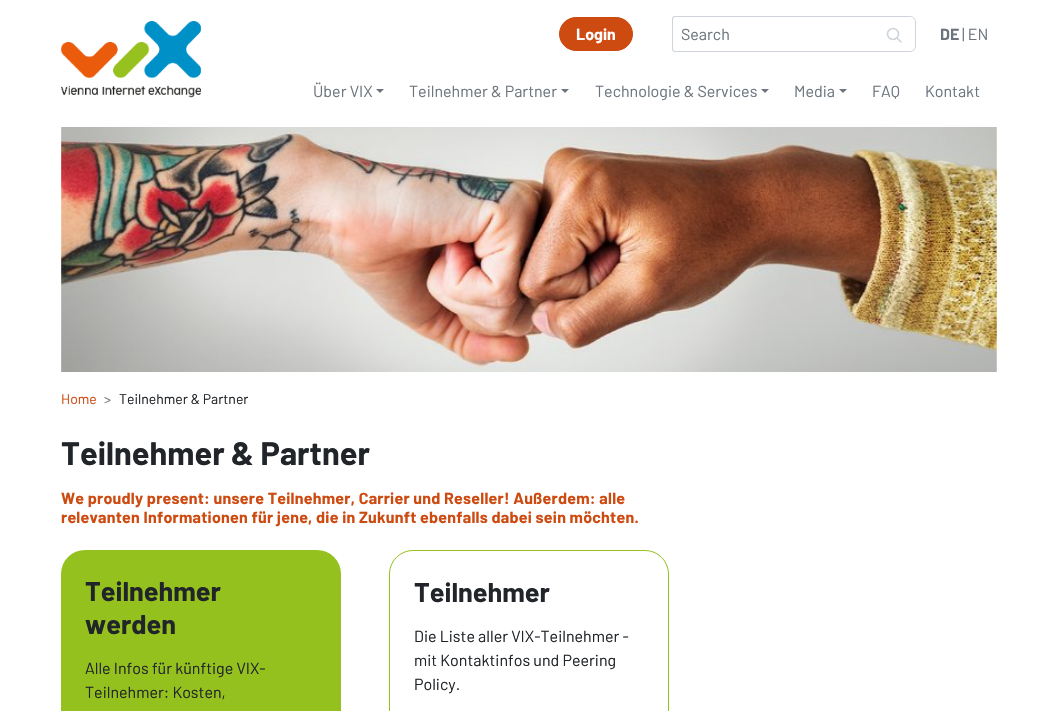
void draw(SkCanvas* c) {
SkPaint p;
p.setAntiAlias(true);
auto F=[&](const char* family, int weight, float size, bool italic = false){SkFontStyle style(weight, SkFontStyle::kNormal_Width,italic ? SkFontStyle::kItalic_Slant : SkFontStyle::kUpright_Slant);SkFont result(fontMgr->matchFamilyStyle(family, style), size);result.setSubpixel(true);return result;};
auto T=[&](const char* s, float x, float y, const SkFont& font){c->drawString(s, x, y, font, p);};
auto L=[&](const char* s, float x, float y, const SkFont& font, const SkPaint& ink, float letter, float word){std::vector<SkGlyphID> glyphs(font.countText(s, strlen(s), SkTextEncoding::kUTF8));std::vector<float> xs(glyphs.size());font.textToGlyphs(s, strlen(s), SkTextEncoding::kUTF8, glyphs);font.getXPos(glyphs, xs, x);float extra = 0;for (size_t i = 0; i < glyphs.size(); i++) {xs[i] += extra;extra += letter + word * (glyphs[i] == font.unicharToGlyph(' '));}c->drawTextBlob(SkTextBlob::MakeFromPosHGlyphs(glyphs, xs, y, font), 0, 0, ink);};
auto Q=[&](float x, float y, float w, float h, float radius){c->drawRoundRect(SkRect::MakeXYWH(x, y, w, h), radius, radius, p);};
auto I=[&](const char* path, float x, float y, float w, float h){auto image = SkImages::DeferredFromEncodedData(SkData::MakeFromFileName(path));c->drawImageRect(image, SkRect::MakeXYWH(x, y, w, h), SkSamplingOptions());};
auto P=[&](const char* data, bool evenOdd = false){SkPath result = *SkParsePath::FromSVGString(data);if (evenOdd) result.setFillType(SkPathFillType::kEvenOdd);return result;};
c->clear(0xffffffff);
p.setColor(0xffcd4a10);
c->drawRoundRect(SkRect::MakeXYWH(559.5,17.5,73,33),16.5,16.5,p);
p.setStroke(true);
p.setStrokeWidth(1);
c->drawRoundRect(SkRect::MakeXYWH(559.5,17.5,73,33),16.5,16.5,p);
auto f1 = F("Barlow",700,16);
p.setStroke(false);
p.setColor(0xffffffff);
T("Login",576,40,f1);
p.setColor(0xffced4da);
c->drawPath(P("M675 16h199v36h-199c-2 0-3-1-3-3v-30c0-2 1-3 3-3zm0 1h199v34h-199c-1 0-2-1-2-2v-30c0-1 1-2 2-2z",true),p);
auto f2 = F("Barlow",400,16);
p.setColor(0xff6c757d);
T("Search",681,40,f2);
p.setColor(0xffced4da);
c->drawPath(P("M873 16h37c3 0 6 3 6 6v24c0 3-3 6-6 6h-37zm0 1h37c3 0 5 2 5 5v24c0 3-2 5-5 5h-37z",true),p);
p.setStroke(true);
p.setStrokeWidth(1.5);
c->drawCircle(893,34,5.5,p);
p.setStrokeCap(SkPaint::kRound_Cap);
p.setStrokeJoin(SkPaint::kRound_Join);
c->drawPath(P("M901 42l-4-4"),p);
p.setStroke(false);
p.setColor(0xff6c757d);
T("DE",940,40,f1);
T("| EN",962,40,f2);
I("1.png",60,21,141,77);
T("Über VIX",313,97,f2);
c->drawPath(P("M376 89h8l-4 4z"),p);
T("Teilnehmer & Partner",409,97,f2);
c->drawPath(P("M561 89h8l-4 4z"),p);
T("Technologie & Services",595,97,f2);
c->drawPath(P("M761 89h8l-4 4z"),p);
T("Media",794,97,f2);
c->drawPath(P("M839 89h8l-4 4z"),p);
T("FAQ",872,97,f2);
T("Kontakt",925,97,f2);
I("2.png",61,127,936,245);
auto f3 = F("Barlow",400,14);
p.setColor(0xffcd4a10);
T("Home",61,404,f3);
p.setColor(0xff6c757d);
T(">",104,404,f3);
p.setColor(0xff212529);
T("Teilnehmer & Partner",119,404,f3);
auto f4 = F("Barlow",700,32.5);
T("Teilnehmer & Partner",61,465,f4);
p.setColor(0xffcd4a10);
L("We proudly present: unsere Teilnehmer, Carrier und Reseller! Außerdem: alle",61,504,f1,p,.25,0);
L("relevanten Informationen für jene, die in Zukunft ebenfalls dabei sein möchten.",61,523,f1,p,.25,0);
p.setColor(0xff95c11f);
Q(61,550,280,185,24);
auto f5 = F("Barlow",700,27);
p.setColor(0xff212529);
T("Teilnehmer",85,601,f5);
T("werden",85,634,f5);
T("Alle Infos für künftige VIX-",85,674,f2);
T("Teilnehmer: Kosten,",85,698,f2);
p.setStroke(true);
p.setStrokeWidth(1);
p.setStrokeCap(SkPaint::kButt_Cap);
p.setStrokeJoin(SkPaint::kMiter_Join);
p.setColor(0xff95c11f);
c->drawRoundRect(SkRect::MakeXYWH(389.5,550.5,279,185),23.5,23.5,p);
p.setStroke(false);
p.setColor(0xff212529);
T("Teilnehmer",414,602,f5);
T("Die Liste aller VIX-Teilnehmer -",414,642,f2);
T("mit Kontaktinfos und Peering",414,666,f2);
T("Policy.",414,690,f2);
}
